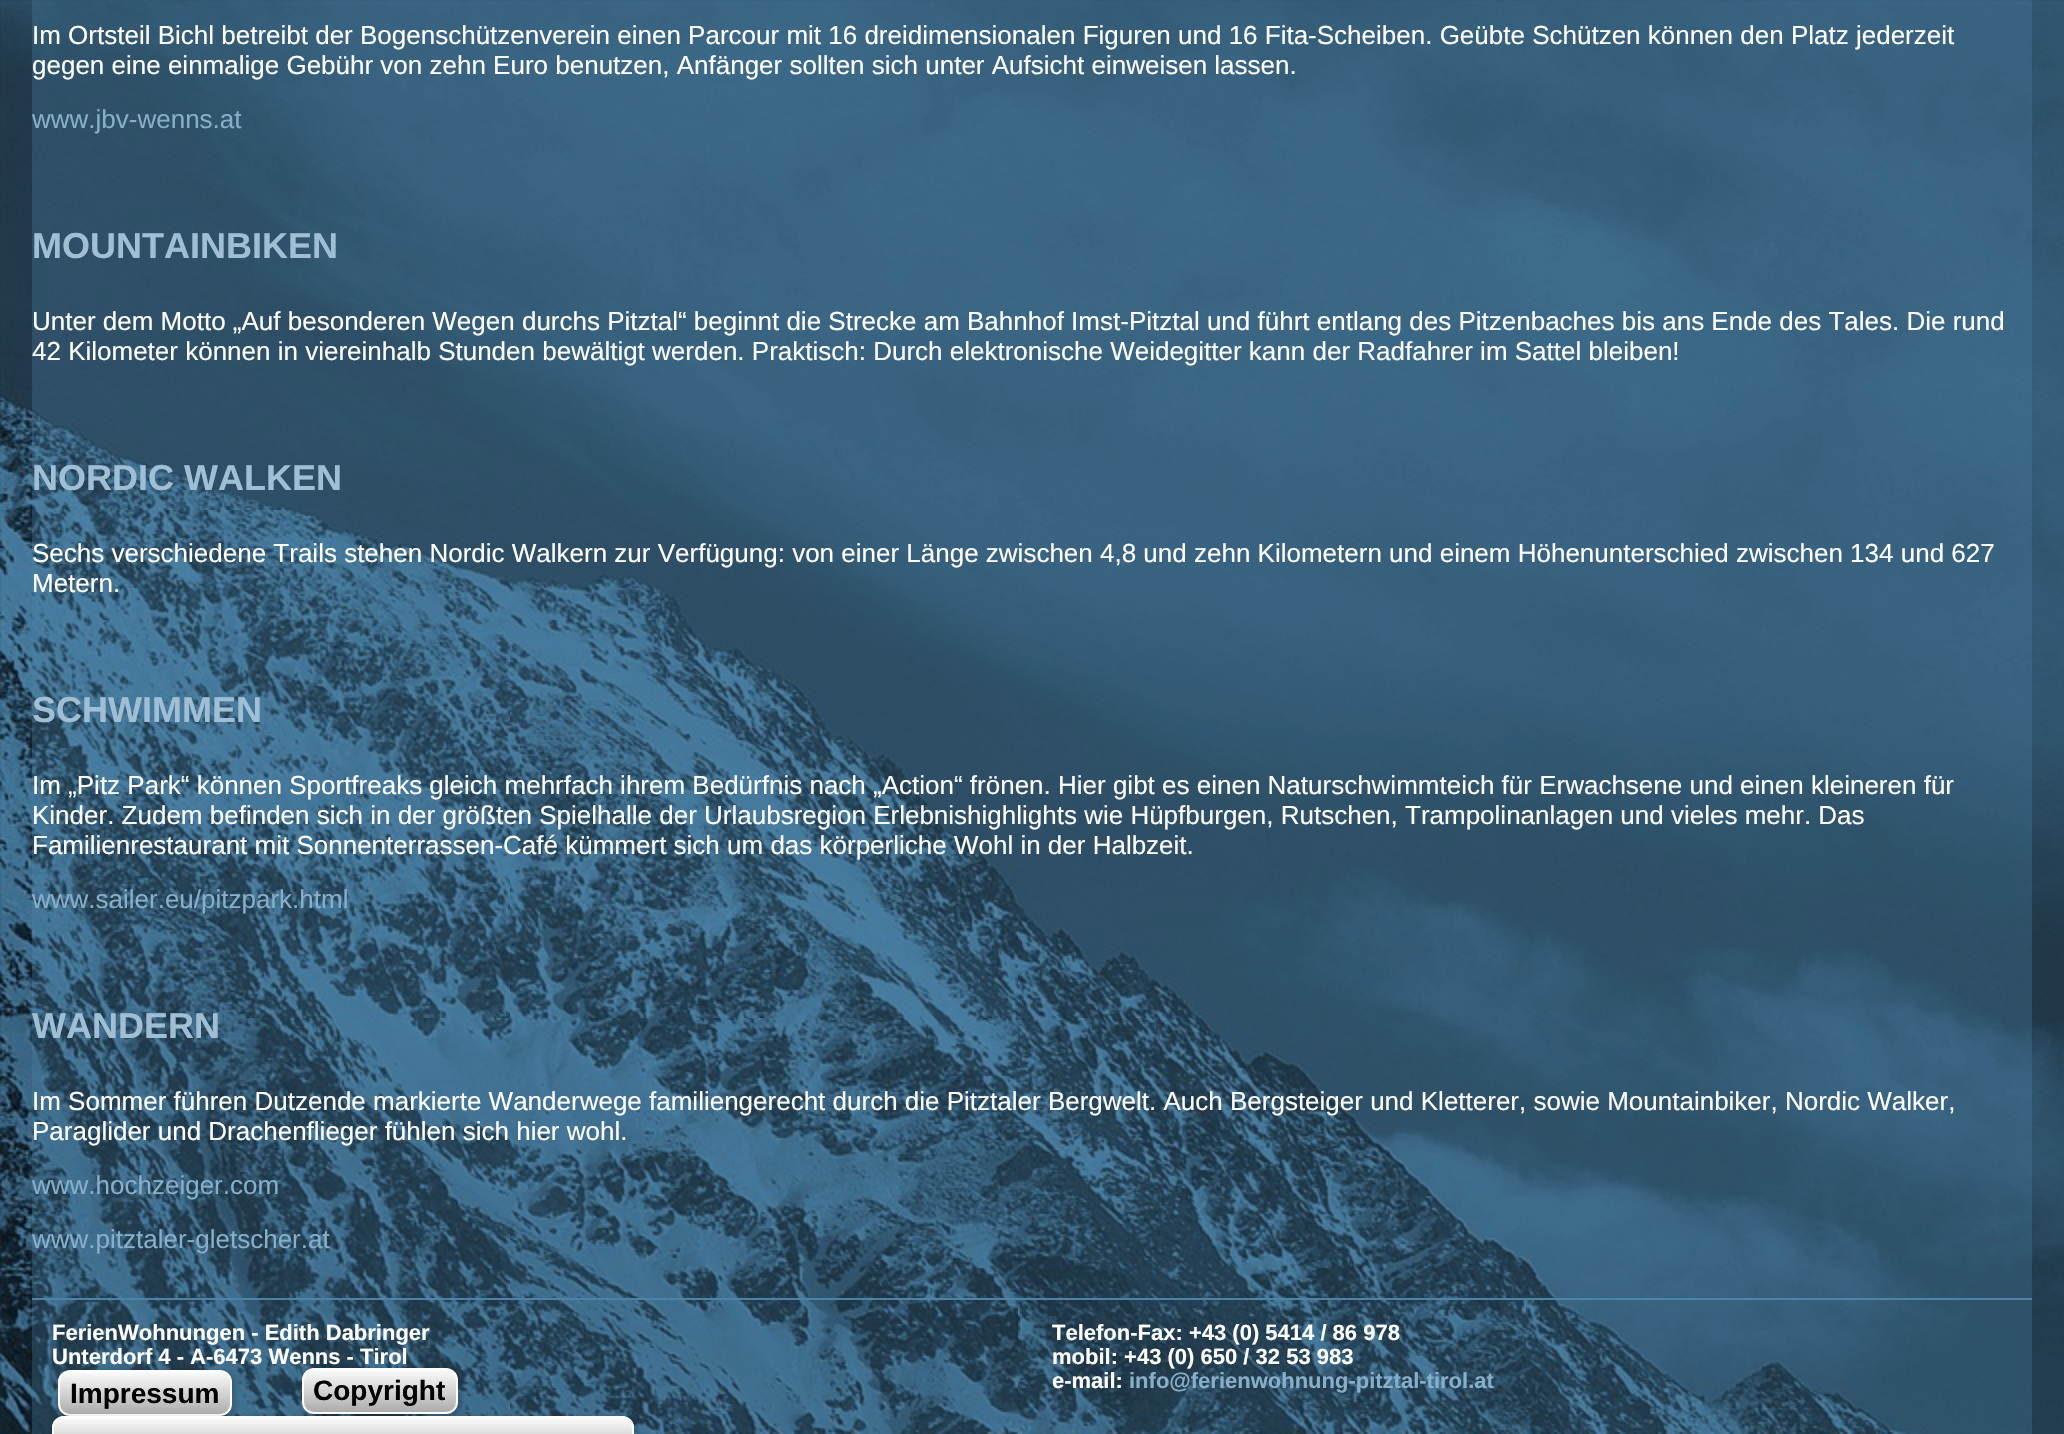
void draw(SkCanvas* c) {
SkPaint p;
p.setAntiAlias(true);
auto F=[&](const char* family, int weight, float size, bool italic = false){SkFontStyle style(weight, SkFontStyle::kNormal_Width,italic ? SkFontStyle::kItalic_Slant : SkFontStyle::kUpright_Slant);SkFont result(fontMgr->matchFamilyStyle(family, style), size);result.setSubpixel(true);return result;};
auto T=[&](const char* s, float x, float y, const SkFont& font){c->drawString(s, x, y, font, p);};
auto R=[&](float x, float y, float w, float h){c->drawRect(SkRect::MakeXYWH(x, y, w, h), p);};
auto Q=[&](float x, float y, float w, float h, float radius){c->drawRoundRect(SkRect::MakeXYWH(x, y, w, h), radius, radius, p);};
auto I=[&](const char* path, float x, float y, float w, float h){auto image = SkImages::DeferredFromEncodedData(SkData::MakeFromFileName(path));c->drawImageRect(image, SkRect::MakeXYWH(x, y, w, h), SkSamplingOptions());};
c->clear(0xffffffff);
I("1.png",0,0,2064,1434);
auto f1 = F("Liberation Sans",400,26);
p.setColor(0xffffffff);
T("Im Ortsteil Bichl betreibt der Bogenschützenverein einen Parcour mit 16 dreidimensionalen Figuren und 16 Fita-Scheiben. Geübte Schützen können den Platz jederzeit",32,44,f1);
T("gegen eine einmalige Gebühr von zehn Euro benutzen, Anfänger sollten sich unter Aufsicht einweisen lassen.",32,74,f1);
p.setColor(0xff87afc9);
T("www.jbv-wenns.at",32,128,f1);
auto f2 = F("Liberation Sans",700,36);
p.setColor(0xffa0bfd4);
T("MOUNTAINBIKEN",32,258,f2);
p.setColor(0xffffffff);
T("Unter dem Motto „Auf besonderen Wegen durchs Pitztal“ beginnt die Strecke am Bahnhof Imst-Pitztal und führt entlang des Pitzenbaches bis ans Ende des Tales. Die rund",32,330,f1);
T("42 Kilometer können in viereinhalb Stunden bewältigt werden. Praktisch: Durch elektronische Weidegitter kann der Radfahrer im Sattel bleiben!",32,360,f1);
p.setColor(0xffa0bfd4);
T("NORDIC WALKEN",32,490,f2);
p.setColor(0xffffffff);
T("Sechs verschiedene Trails stehen Nordic Walkern zur Verfügung: von einer Länge zwischen 4,8 und zehn Kilometern und einem Höhenunterschied zwischen 134 und 627",32,562,f1);
T("Metern.",32,592,f1);
p.setColor(0xffa0bfd4);
T("SCHWIMMEN",32,722,f2);
p.setColor(0xffffffff);
T("Im „Pitz Park“ können Sportfreaks gleich mehrfach ihrem Bedürfnis nach „Action“ frönen. Hier gibt es einen Naturschwimmteich für Erwachsene und einen kleineren für",32,794,f1);
T("Kinder. Zudem befinden sich in der größten Spielhalle der Urlaubsregion Erlebnishighlights wie Hüpfburgen, Rutschen, Trampolinanlagen und vieles mehr. Das",32,824,f1);
T("Familienrestaurant mit Sonnenterrassen-Café kümmert sich um das körperliche Wohl in der Halbzeit.",32,854,f1);
p.setColor(0xff87afc9);
T("www.sailer.eu/pitzpark.html",32,908,f1);
p.setColor(0xffa0bfd4);
T("WANDERN",32,1038,f2);
p.setColor(0xffffffff);
T("Im Sommer führen Dutzende markierte Wanderwege familiengerecht durch die Pitztaler Bergwelt. Auch Bergsteiger und Kletterer, sowie Mountainbiker, Nordic Walker,",32,1110,f1);
T("Paraglider und Drachenflieger fühlen sich hier wohl.",32,1140,f1);
p.setColor(0xff87afc9);
T("www.hochzeiger.com",32,1194,f1);
T("www.pitztaler-gletscher.at",32,1248,f1);
p.setColor(0xff4c84a9);
R(32,1298,2000,2);
auto f3 = F("Liberation Sans",700,22);
p.setColor(0xffffffff);
T("FerienWohnungen - Edith Dabringer",52,1340,f3);
T("Unterdorf 4 - A-6473 Wenns - Tirol",52,1364,f3);
p.setColor(0x26000000);
p.setMaskFilter(SkMaskFilter::MakeBlur(kNormal_SkBlurStyle, 2));
c->drawRoundRect(SkRect::MakeXYWH(58,1370,178,50),14,14,p);
p.setMaskFilter(nullptr);
{
const SkColor colors[] = {0xffffffff,0xffa8a8a8};
const float stops[] = {0,1};
const SkPoint ends[] = {{145,1370}, {145,1416}};
p.setShader(SkGradientShader::MakeLinear(ends, colors, stops, 2, SkTileMode::kClamp));
p.setAlpha(255);
}
c->drawRoundRect(SkRect::MakeXYWH(59,1371,172,44),11,11,p);
p.setStroke(true);
p.setStrokeWidth(2);
p.setShader(nullptr);
p.setColor(0xffffffff);
c->drawRoundRect(SkRect::MakeXYWH(59,1371,172,44),11,11,p);
auto f4 = F("Liberation Sans",700,28);
p.setStroke(false);
p.setColor(0xff000000);
T("Impressum",70,1403,f4);
p.setColor(0x26000000);
p.setMaskFilter(SkMaskFilter::MakeBlur(kNormal_SkBlurStyle, 2));
c->drawRoundRect(SkRect::MakeXYWH(302,1368,160,50),14,14,p);
p.setMaskFilter(nullptr);
{
const SkColor colors[] = {0xffffffff,0xffa8a8a8};
const float stops[] = {0,1};
const SkPoint ends[] = {{380,1368}, {380,1414}};
p.setShader(SkGradientShader::MakeLinear(ends, colors, stops, 2, SkTileMode::kClamp));
p.setAlpha(255);
}
c->drawRoundRect(SkRect::MakeXYWH(303,1369,154,44),11,11,p);
p.setStroke(true);
p.setShader(nullptr);
p.setColor(0xffffffff);
c->drawRoundRect(SkRect::MakeXYWH(303,1369,154,44),11,11,p);
p.setStroke(false);
p.setColor(0xff000000);
T("Copyright",313,1400,f4);
p.setColor(0x26000000);
p.setMaskFilter(SkMaskFilter::MakeBlur(kNormal_SkBlurStyle, 2));
c->drawRoundRect(SkRect::MakeXYWH(52,1416,586,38),14,14,p);
p.setMaskFilter(nullptr);
{
const SkColor colors[] = {0xffffffff,0xffa8a8a8};
const float stops[] = {0,1};
const SkPoint ends[] = {{343,1416}, {343,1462}};
p.setShader(SkGradientShader::MakeLinear(ends, colors, stops, 2, SkTileMode::kClamp));
p.setAlpha(255);
}
Q(52,1416,582,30,12);
p.setStroke(true);
p.setShader(nullptr);
p.setColor(0xffffffff);
c->drawRoundRect(SkRect::MakeXYWH(53,1417,580,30),11,11,p);
p.setStroke(false);
T("Telefon-Fax: +43 (0) 5414 / 86 978",1052,1340,f3);
T("mobil: +43 (0) 650 / 32 53 983",1052,1364,f3);
T("e-mail:",1052,1388,f3);
p.setColor(0xff87afc9);
T("info@ferienwohnung-pitztal-tirol.at",1129,1388,f3);
}
